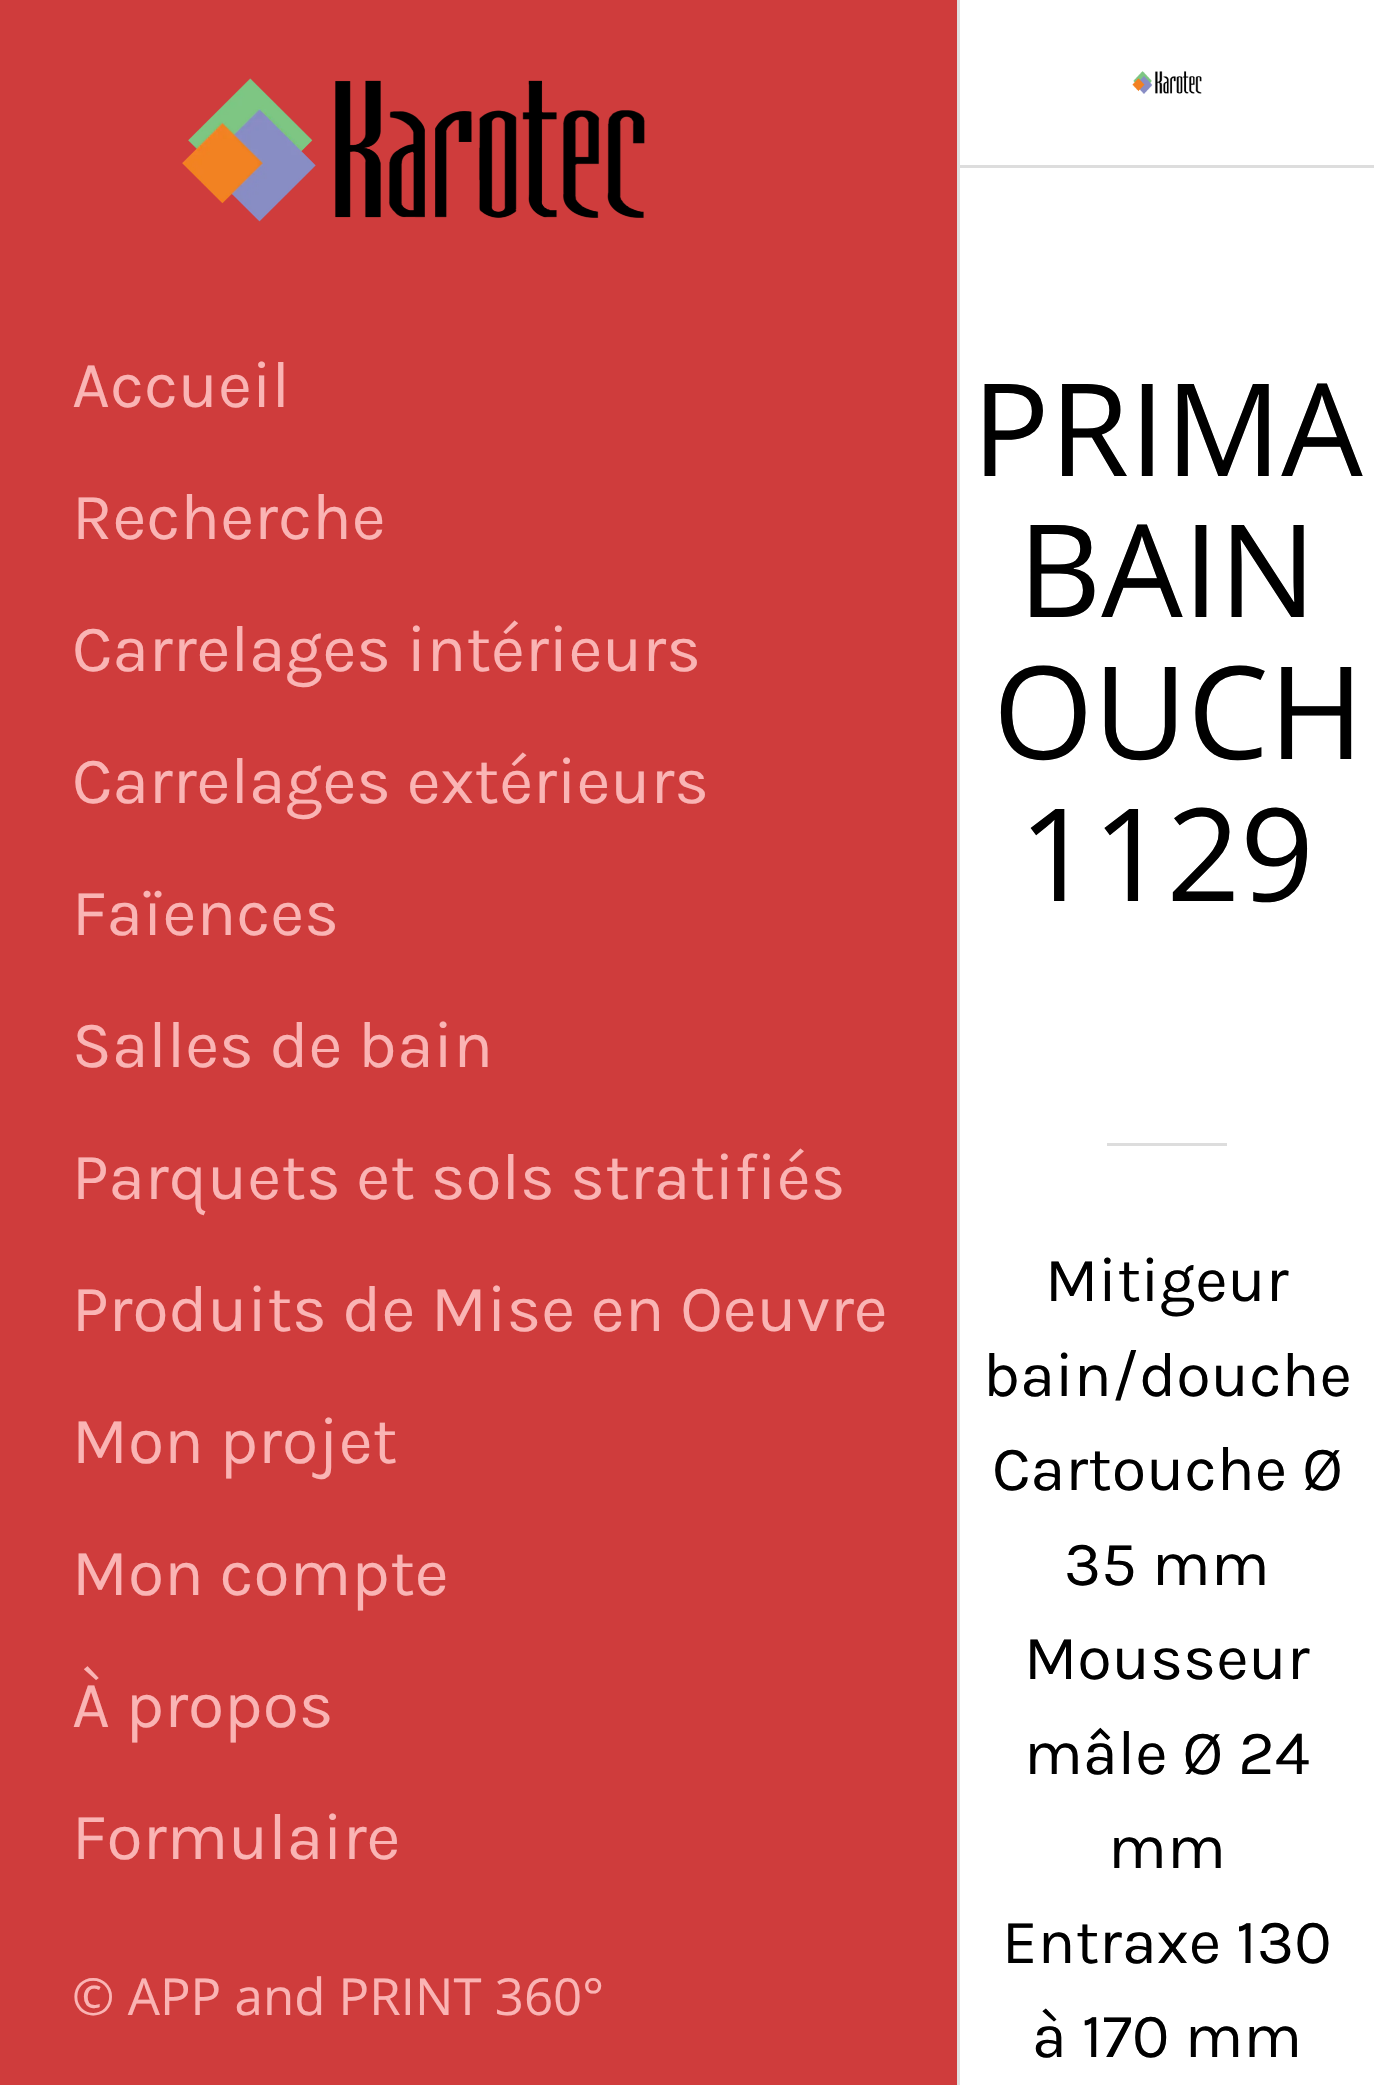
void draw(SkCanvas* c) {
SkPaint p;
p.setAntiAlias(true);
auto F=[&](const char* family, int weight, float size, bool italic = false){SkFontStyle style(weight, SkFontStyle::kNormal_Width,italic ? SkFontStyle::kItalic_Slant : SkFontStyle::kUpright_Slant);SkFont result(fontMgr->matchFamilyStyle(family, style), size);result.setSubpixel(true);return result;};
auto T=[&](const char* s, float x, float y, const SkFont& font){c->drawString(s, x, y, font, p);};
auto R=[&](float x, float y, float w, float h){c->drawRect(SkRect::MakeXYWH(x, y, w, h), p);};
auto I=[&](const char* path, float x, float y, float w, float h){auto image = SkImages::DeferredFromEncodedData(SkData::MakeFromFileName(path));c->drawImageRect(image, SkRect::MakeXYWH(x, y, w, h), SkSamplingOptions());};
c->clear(0xffffffff);
p.setColor(0xffe0e0e0);
R(957,0,3,2085);
p.setColor(0xffcf3c3c);
R(0,0,957,2085);
I("1.png",182,78,463,144);
auto f1 = F("Karla",400,66);
p.setColor(0xfffab4b4);
T("Accueil",72,407,f1);
T("Recherche",72,539,f1);
T("Carrelages intérieurs",72,671,f1);
T("Carrelages extérieurs",72,803,f1);
T("Faïences",72,935,f1);
T("Salles de bain",72,1067,f1);
T("Parquets et sols stratifiés",72,1199,f1);
T("Produits de Mise en Oeuvre",72,1331,f1);
T("Mon projet",72,1463,f1);
T("Mon compte",72,1595,f1);
T("À propos",72,1727,f1);
T("Formulaire",72,1859,f1);
auto f2 = F("Open Sans",400,51);
T("© APP and PRINT 360°",72,2015,f2);
p.setColor(0xffdddddd);
R(960,165,414,3);
I("2.png",1132,71,70,23);
auto f3 = F("Open Sans",400,129);
p.setColor(0xff000000);
T("PRIMA",972,476,f3);
T("BAIN",1018,617,f3);
T("OUCH",993,759,f3);
T("1129",1019,901,f3);
p.setColor(0xffdddddd);
R(1107,1143,120,3);
auto f4 = F("Karla",400,63);
p.setColor(0xff000000);
T("Mitigeur",1045,1301,f4);
T("bain/douche",983,1396,f4);
T("Cartouche Ø",992,1490,f4);
T("35 mm",1064,1585,f4);
T("Mousseur",1024,1679,f4);
T("mâle Ø 24",1024,1774,f4);
T("mm",1108,1868,f4);
T("Entraxe 130",1002,1963,f4);
T("à 170 mm",1032,2057,f4);
}
